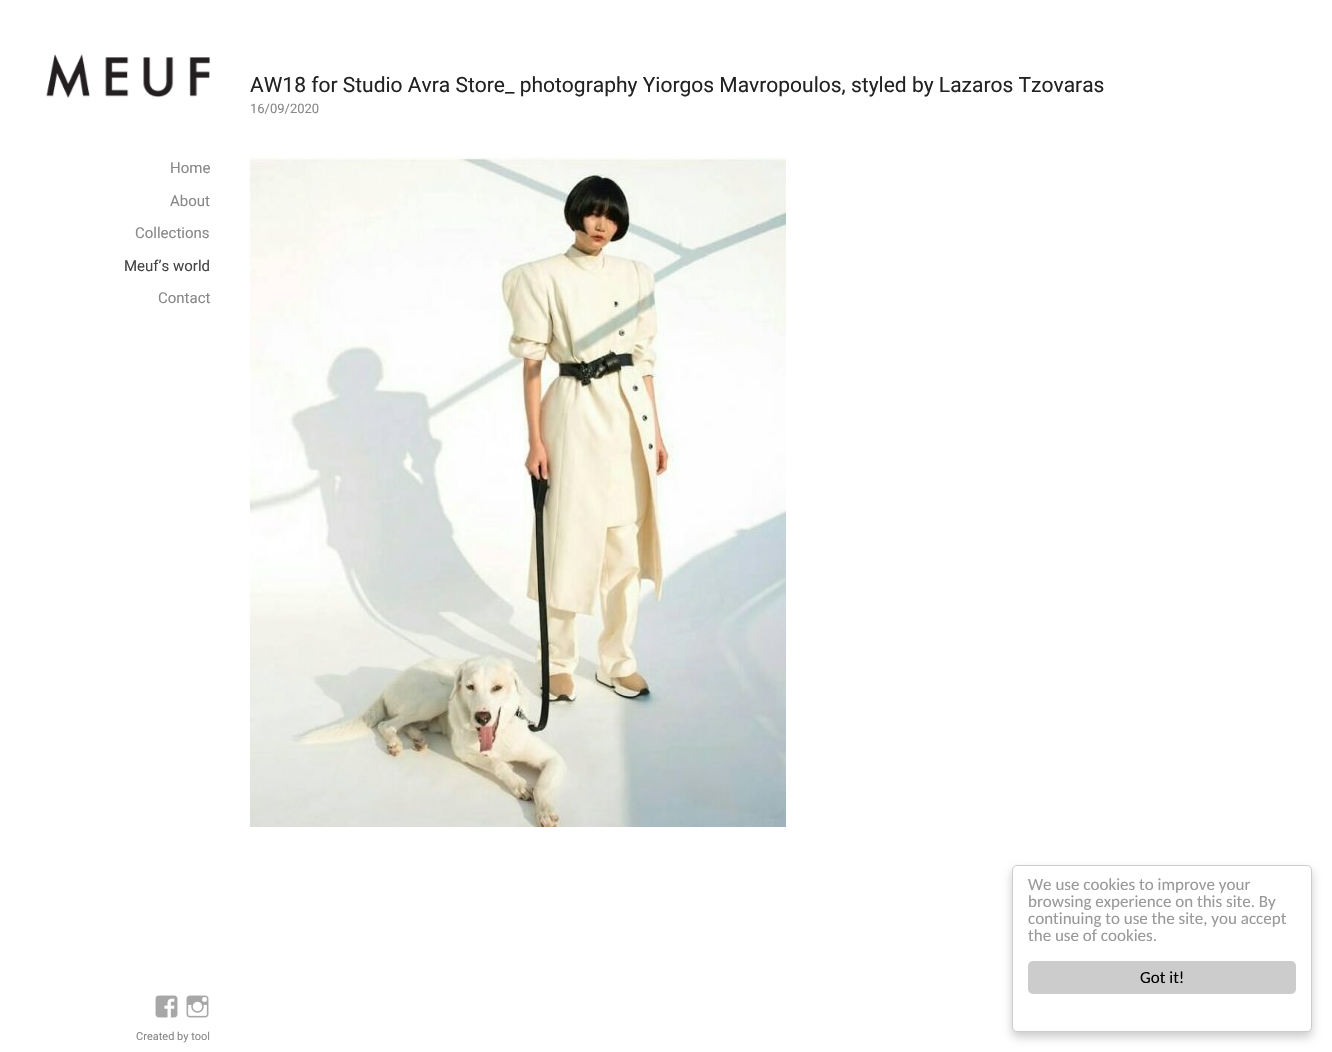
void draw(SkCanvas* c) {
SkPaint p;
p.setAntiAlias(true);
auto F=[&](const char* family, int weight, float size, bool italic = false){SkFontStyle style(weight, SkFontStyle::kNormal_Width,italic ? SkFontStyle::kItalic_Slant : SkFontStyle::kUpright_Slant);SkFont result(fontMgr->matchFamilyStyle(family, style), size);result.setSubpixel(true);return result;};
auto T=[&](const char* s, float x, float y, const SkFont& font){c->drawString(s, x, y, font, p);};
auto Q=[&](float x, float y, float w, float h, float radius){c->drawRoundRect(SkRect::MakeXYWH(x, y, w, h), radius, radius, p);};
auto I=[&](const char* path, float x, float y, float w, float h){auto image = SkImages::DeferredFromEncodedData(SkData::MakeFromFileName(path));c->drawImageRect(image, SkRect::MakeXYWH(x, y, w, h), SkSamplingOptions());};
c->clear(0xffffffff);
auto f1 = F("Roboto",400,21);
p.setColor(0xff222222);
T("AW18 for Studio Avra Store_ photography Yiorgos Mavropoulos, styled by Lazaros Tzovaras",250,92,f1);
auto f2 = F("Roboto",400,13);
p.setColor(0xff888888);
T("16/09/2020",250,113,f2);
I("1.png",250,157,536,670);
I("2.png",46,54,164,44);
auto f3 = F("Roboto",400,15);
T("Home",170,173,f3);
T("About",170,206,f3);
T("Collections",135,238,f3);
p.setColor(0xff444444);
T("Meuf’s world",124,271,f3);
p.setColor(0xff888888);
T("Contact",158,303,f3);
p.setColor(0x33000000);
p.setMaskFilter(SkMaskFilter::MakeBlur(kNormal_SkBlurStyle, 5));
c->drawRoundRect(SkRect::MakeXYWH(1012,870,300,167),5,5,p);
p.setMaskFilter(nullptr);
p.setColor(0xffffffff);
c->drawRoundRect(SkRect::MakeXYWH(1012.5,865.5,299,166),4.5,4.5,p);
p.setStroke(true);
p.setStrokeWidth(1);
p.setColor(0xffcccccc);
c->drawRoundRect(SkRect::MakeXYWH(1012.5,865.5,299,166),4.5,4.5,p);
auto f4 = F("Carlito",400,17);
p.setStroke(false);
p.setColor(0xff999999);
T("We use cookies to improve your",1028,890,f4);
T("browsing experience on this site. By",1028,907,f4);
T("continuing to use the site, you accept",1028,924,f4);
T("the use of cookies.",1028,941,f4);
p.setColor(0xffcccccc);
Q(1028,961,268,33,5);
p.setColor(0xff000000);
T("Got it!",1140,983,f4);
I("3.png",155,995,23,23);
I("4.png",186,995,23,23);
auto f5 = F("Roboto",400,11);
p.setColor(0xff888888);
T("Created by tool",136,1040,f5);
}
